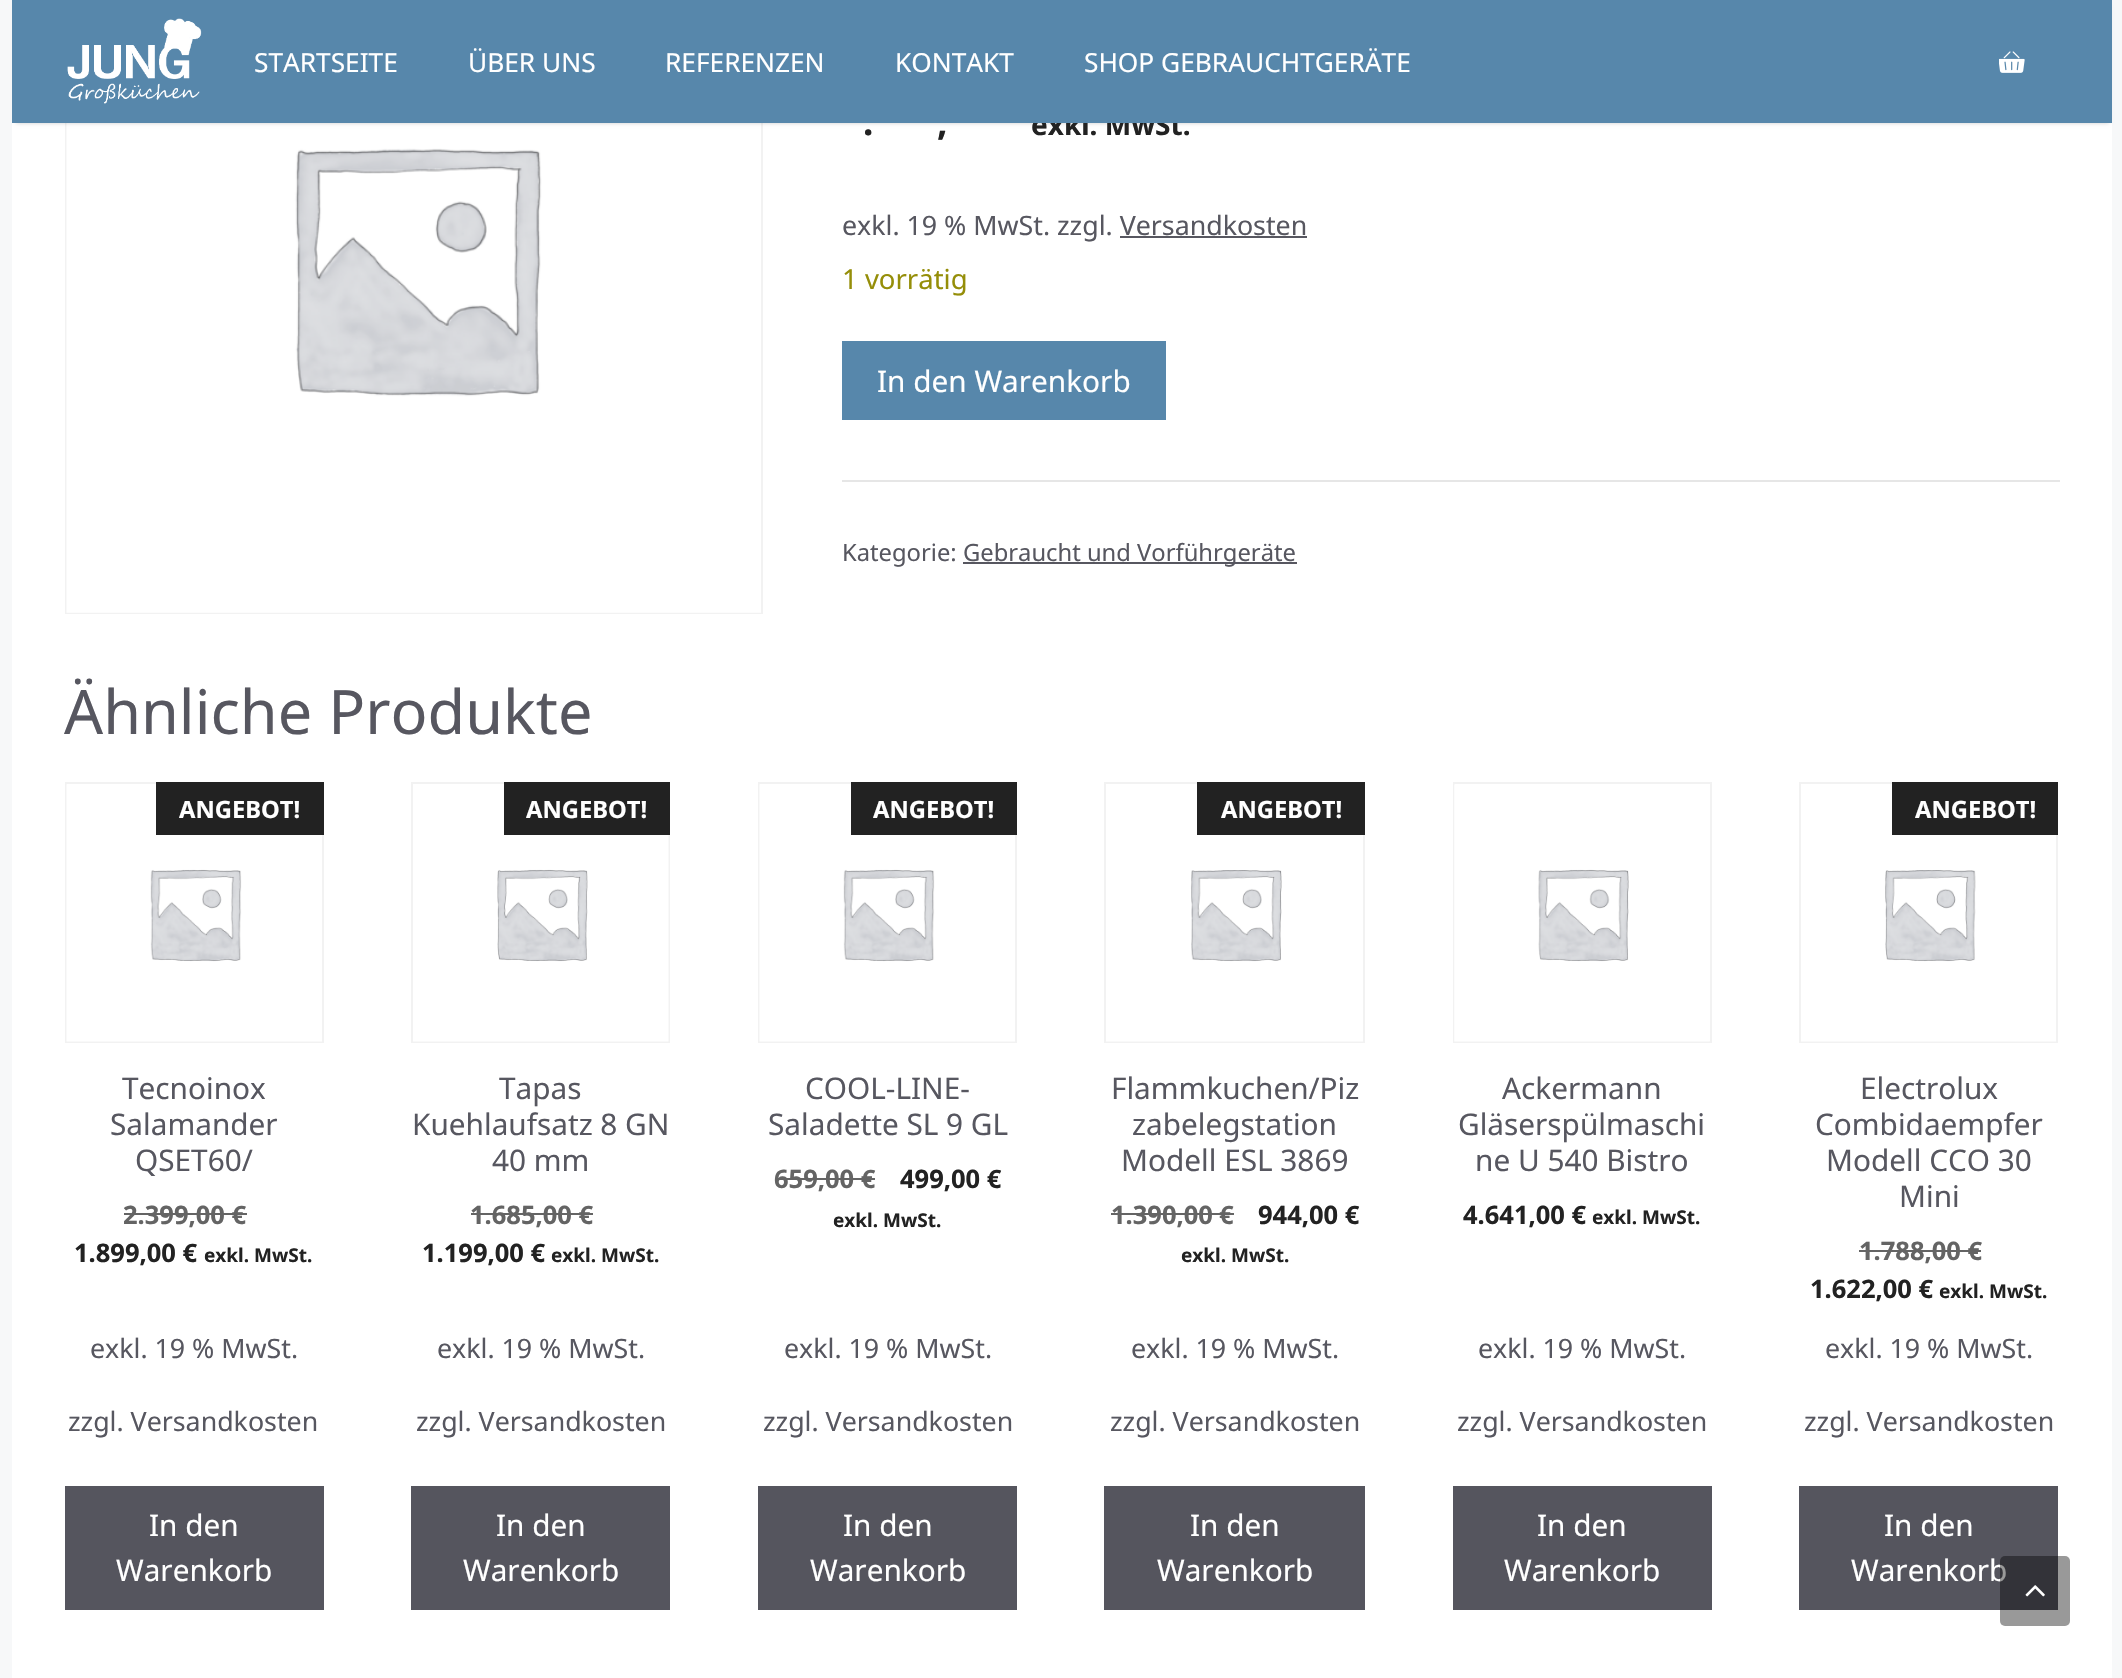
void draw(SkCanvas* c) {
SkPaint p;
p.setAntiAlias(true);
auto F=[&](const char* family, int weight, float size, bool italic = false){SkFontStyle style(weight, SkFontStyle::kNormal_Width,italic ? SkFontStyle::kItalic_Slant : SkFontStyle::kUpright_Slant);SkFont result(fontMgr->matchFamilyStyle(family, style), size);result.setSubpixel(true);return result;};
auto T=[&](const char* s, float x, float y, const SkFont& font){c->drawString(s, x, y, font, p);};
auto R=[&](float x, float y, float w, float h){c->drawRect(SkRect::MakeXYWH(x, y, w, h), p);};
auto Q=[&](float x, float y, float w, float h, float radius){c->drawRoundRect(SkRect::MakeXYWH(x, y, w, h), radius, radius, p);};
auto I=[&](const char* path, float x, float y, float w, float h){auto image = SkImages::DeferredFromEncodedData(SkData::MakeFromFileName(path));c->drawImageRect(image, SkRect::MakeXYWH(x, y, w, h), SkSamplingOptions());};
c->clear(0xfff7f8f9);
p.setColor(0xffffffff);
R(12,123,2100,1555);
p.setStroke(true);
p.setStrokeWidth(2);
p.setColor(0xfff2f2f2);
c->drawRect(SkRect::MakeXYWH(66,-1,696,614),p);
I("3.png",66,123,695,490);
p.setStroke(false);
p.setColor(0x33000000);
p.setMaskFilter(SkMaskFilter::MakeBlur(kNormal_SkBlurStyle, 2));
c->drawRect(SkRect::MakeXYWH(16,7,2093,116),p);
p.setMaskFilter(nullptr);
auto f1 = F("Noto Sans",700,28);
p.setColor(0xff222222);
T("exkl. MwSt.",1031,135,f1);
p.setColor(0xff5787ab);
R(12,0,2100,123);
I("1.png",67,18,135,86);
auto f2 = F("Noto Sans",400,26.25);
p.setColor(0xffffffff);
T("STARTSEITE",254,72,f2);
T("ÜBER UNS",468,72,f2);
T("REFERENZEN",665,72,f2);
T("KONTAKT",895,72,f2);
T("SHOP GEBRAUCHTGERÄTE",1084,72,f2);
I("2.png",1999,51,26,22);
auto f3 = F("Noto Sans",700,37);
p.setColor(0xff222222);
T(".",863,135,f3);
T(",",937,135,f3);
auto f4 = F("Noto Sans",400,26.75);
p.setColor(0xff575760);
T("exkl. 19 % MwSt. zzgl. Versandkosten",842,235,f4);
R(1120,236,187,2);
auto f5 = F("Noto Sans",400,27.5);
p.setColor(0xff958e09);
T("1 vorrätig",842,289,f5);
p.setColor(0xff5787ab);
R(842,341,324,79);
auto f6 = F("Noto Sans",400,29.75);
p.setColor(0xffffffff);
T("In den Warenkorb",877,392,f6);
p.setColor(0xffe6e6e6);
R(842,480,1218,2);
auto f7 = F("Noto Sans",400,23.75);
p.setColor(0xff575760);
T("Kategorie:",842,561,f7);
R(963,562,334,2);
T("Gebraucht und Vorführgeräte",963,561,f7);
auto f8 = F("Noto Sans",400,61.25);
T("Ähnliche Produkte",64,734,f8);
p.setStroke(true);
p.setColor(0xfff2f2f2);
c->drawRect(SkRect::MakeXYWH(66,783,257,259),p);
I("4.png",66,784,256,258);
p.setStroke(false);
p.setColor(0xff222222);
R(156,782,168,53);
auto f9 = F("Noto Sans",700,23.75);
p.setColor(0xffffffff);
T("ANGEBOT!",179,818,f9);
p.setColor(0xff575760);
T("Tecnoinox",122,1099,f6);
T("Salamander",110,1135,f6);
T("QSET60/",135,1171,f6);
auto f10 = F("Noto Sans",700,25.5);
p.setColor(0xff646464);
T("2.399,00 €",123,1224,f10);
R(124,1213,123,2);
p.setColor(0xff222222);
T("1.899,00 €",74,1262,f10);
auto f11 = F("Noto Sans",700,19);
T("exkl. MwSt.",204,1262,f11);
p.setColor(0xff575760);
T("exkl. 19 % MwSt.",90,1358,f4);
T("zzgl. Versandkosten",68,1431,f4);
p.setColor(0xff55555e);
R(65,1486,259,124);
p.setColor(0xffffffff);
T("In den",149,1536,f6);
T("Warenkorb",116,1581,f6);
p.setStroke(true);
p.setColor(0xfff2f2f2);
c->drawRect(SkRect::MakeXYWH(412,783,257,259),p);
I("5.png",413,784,256,258);
p.setStroke(false);
p.setColor(0xff222222);
R(504,782,166,53);
p.setColor(0xffffffff);
T("ANGEBOT!",526,818,f9);
p.setColor(0xff575760);
T("Tapas",499,1099,f6);
T("Kuehlaufsatz 8 GN",412,1135,f6);
T("40 mm",492,1171,f6);
p.setColor(0xff646464);
T("1.685,00 €",470,1224,f10);
R(471,1213,122,2);
p.setColor(0xff222222);
T("1.199,00 €",422,1262,f10);
T("exkl. MwSt.",551,1262,f11);
p.setColor(0xff575760);
T("exkl. 19 % MwSt.",437,1358,f4);
T("zzgl. Versandkosten",416,1431,f4);
p.setColor(0xff55555e);
R(411,1486,259,124);
p.setColor(0xffffffff);
T("In den",496,1536,f6);
T("Warenkorb",463,1581,f6);
p.setStroke(true);
p.setColor(0xfff2f2f2);
c->drawRect(SkRect::MakeXYWH(759,783,257,259),p);
I("4.png",759,784,256,258);
p.setStroke(false);
p.setColor(0xff222222);
R(851,782,166,53);
p.setColor(0xffffffff);
T("ANGEBOT!",873,818,f9);
p.setColor(0xff575760);
T("COOL-LINE-",805,1099,f6);
T("Saladette SL 9 GL",768,1135,f6);
p.setColor(0xff646464);
T("659,00 €",774,1188,f10);
R(775,1178,100,2);
p.setColor(0xff222222);
T("499,00 €",900,1188,f10);
T("exkl. MwSt.",833,1227,f11);
p.setColor(0xff575760);
T("exkl. 19 % MwSt.",784,1358,f4);
T("zzgl. Versandkosten",763,1431,f4);
p.setColor(0xff55555e);
R(758,1486,259,124);
p.setColor(0xffffffff);
T("In den",843,1536,f6);
T("Warenkorb",810,1581,f6);
p.setStroke(true);
p.setColor(0xfff2f2f2);
c->drawRect(SkRect::MakeXYWH(1105,783,259,259),p);
I("6.png",1106,870,257,172);
p.setStroke(false);
p.setColor(0xff222222);
R(1197,782,168,53);
p.setColor(0xffffffff);
T("ANGEBOT!",1221,818,f9);
p.setColor(0xff575760);
T("Flammkuchen/Piz",1111,1099,f6);
T("zabelegstation",1132,1135,f6);
T("Modell ESL 3869",1121,1171,f6);
p.setColor(0xff646464);
T("1.390,00",1111,1224,f10);
R(1111,1213,109,2);
T("€",1219,1224,f10);
R(1220,1213,14,2);
p.setColor(0xff222222);
T("944,00 €",1258,1224,f10);
T("exkl. MwSt.",1181,1262,f11);
p.setColor(0xff575760);
T("exkl. 19 % MwSt.",1131,1358,f4);
T("zzgl. Versandkosten",1110,1431,f4);
p.setColor(0xff55555e);
R(1104,1486,261,124);
p.setColor(0xffffffff);
T("In den",1190,1536,f6);
T("Warenkorb",1157,1581,f6);
p.setStroke(true);
p.setColor(0xfff2f2f2);
c->drawRect(SkRect::MakeXYWH(1454,783,257,259),p);
I("7.png",1454,784,256,258);
p.setStroke(false);
p.setColor(0xff575760);
T("Ackermann",1502,1099,f6);
T("Gläserspülmaschi",1458,1135,f6);
T("ne U 540 Bistro",1475,1171,f6);
p.setColor(0xff222222);
T("4.641,00 €",1463,1224,f10);
T("exkl. MwSt.",1592,1224,f11);
p.setColor(0xff575760);
T("exkl. 19 % MwSt.",1478,1358,f4);
T("zzgl. Versandkosten",1457,1431,f4);
p.setColor(0xff55555e);
R(1453,1486,259,124);
p.setColor(0xffffffff);
T("In den",1537,1536,f6);
T("Warenkorb",1504,1581,f6);
p.setStroke(true);
p.setColor(0xfff2f2f2);
c->drawRect(SkRect::MakeXYWH(1800,783,257,259),p);
I("8.png",1801,870,255,172);
p.setStroke(false);
p.setColor(0xff222222);
R(1892,782,166,53);
p.setColor(0xffffffff);
T("ANGEBOT!",1915,818,f9);
p.setColor(0xff575760);
T("Electrolux",1860,1099,f6);
T("Combidaempfer",1815,1135,f6);
T("Modell CCO 30",1826,1171,f6);
T("Mini",1899,1207,f6);
p.setColor(0xff646464);
T("1.788,00 €",1859,1260,f10);
R(1859,1250,122,2);
p.setColor(0xff222222);
T("1.622,00 €",1810,1298,f10);
T("exkl. MwSt.",1939,1298,f11);
p.setColor(0xff575760);
T("exkl. 19 % MwSt.",1825,1358,f4);
T("zzgl. Versandkosten",1804,1431,f4);
p.setColor(0xff55555e);
R(1799,1486,259,124);
p.setColor(0xffffffff);
T("In den",1884,1536,f6);
T("Warenkorb",1851,1581,f6);
p.setColor(0x66000000);
Q(2000,1556,70,70,5);
I("9.png",2025,1585,20,12);
}
